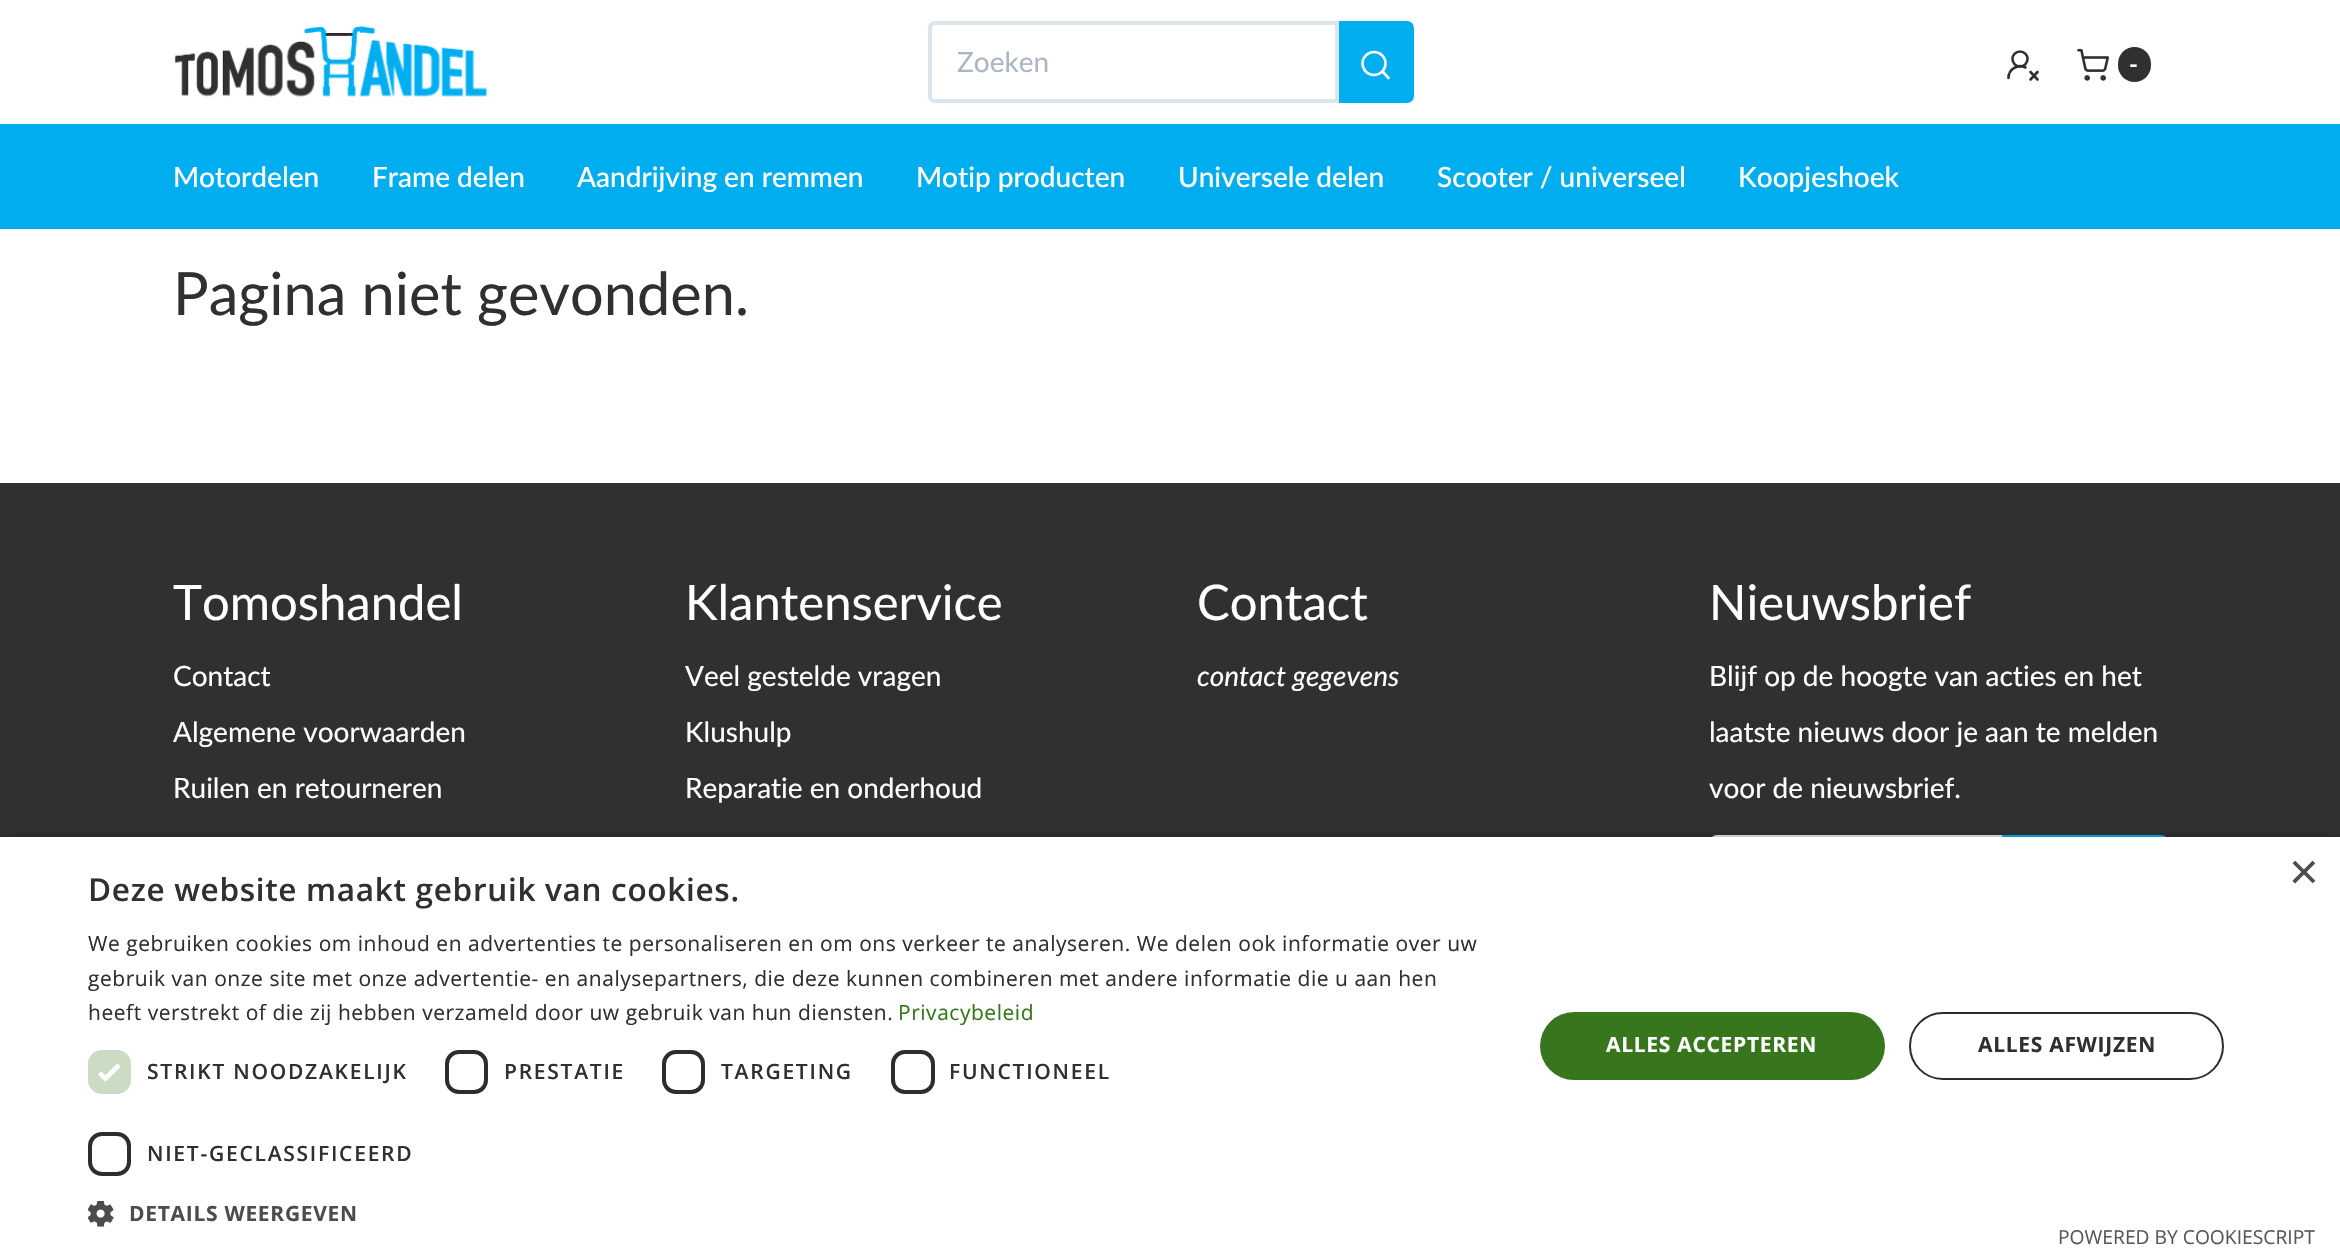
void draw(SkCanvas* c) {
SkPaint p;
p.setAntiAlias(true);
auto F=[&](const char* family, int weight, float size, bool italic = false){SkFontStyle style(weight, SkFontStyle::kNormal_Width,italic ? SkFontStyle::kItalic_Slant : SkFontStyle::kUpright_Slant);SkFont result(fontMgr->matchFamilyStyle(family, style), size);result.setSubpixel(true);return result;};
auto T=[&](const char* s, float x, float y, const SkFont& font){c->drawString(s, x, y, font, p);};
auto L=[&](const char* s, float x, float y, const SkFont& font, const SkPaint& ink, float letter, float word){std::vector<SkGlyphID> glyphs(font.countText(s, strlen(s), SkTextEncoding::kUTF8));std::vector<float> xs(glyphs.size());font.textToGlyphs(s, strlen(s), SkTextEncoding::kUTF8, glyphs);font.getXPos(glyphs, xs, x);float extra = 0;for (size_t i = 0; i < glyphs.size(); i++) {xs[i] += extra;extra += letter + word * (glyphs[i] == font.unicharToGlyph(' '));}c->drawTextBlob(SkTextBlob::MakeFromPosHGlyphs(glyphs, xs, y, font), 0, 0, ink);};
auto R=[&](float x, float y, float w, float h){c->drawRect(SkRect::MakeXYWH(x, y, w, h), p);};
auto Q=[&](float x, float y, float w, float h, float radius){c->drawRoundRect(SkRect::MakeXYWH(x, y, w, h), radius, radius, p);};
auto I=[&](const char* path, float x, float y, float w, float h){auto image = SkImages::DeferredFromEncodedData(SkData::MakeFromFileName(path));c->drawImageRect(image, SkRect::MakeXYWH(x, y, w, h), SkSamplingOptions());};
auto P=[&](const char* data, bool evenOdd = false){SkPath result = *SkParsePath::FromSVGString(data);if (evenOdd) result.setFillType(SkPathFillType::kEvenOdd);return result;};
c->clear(0xffffffff);
I("1.png",175,26,312,71);
p.setColor(0xff00adee);
c->drawPath(P("M1339 23h68c3 0 5 2 5 5v68c0 3-2 5-5 5h-68z"),p);
p.setStroke(true);
p.setStrokeWidth(4);
c->drawPath(P("M1339 23h68c3 0 5 2 5 5v68c0 3-2 5-5 5h-68z"),p);
p.setStroke(false);
p.setColor(0xffffffff);
c->drawPath(P("M935 23h402v78h-402c-3 0-5-2-5-5v-68c0-3 2-5 5-5z"),p);
p.setStroke(true);
p.setColor(0xffdce4ec);
c->drawPath(P("M935 23h402v78h-402c-3 0-5-2-5-5v-68c0-3 2-5 5-5z"),p);
auto f1 = F("Lato",400,28);
p.setStroke(false);
p.setColor(0xffacb6c0);
T("Zoeken",957,72,f1);
p.setStroke(true);
p.setStrokeWidth(2.6);
p.setStrokeCap(SkPaint::kRound_Cap);
p.setStrokeJoin(SkPaint::kRound_Join);
p.setColor(0xffffffff);
c->drawPath(P("M1388.5 78l-6-6.5"),p);
p.setStrokeCap(SkPaint::kButt_Cap);
p.setStrokeJoin(SkPaint::kMiter_Join);
c->drawCircle(1374,63.5,11.5,p);
p.setStrokeCap(SkPaint::kRound_Cap);
p.setStrokeJoin(SkPaint::kRound_Join);
p.setColor(0xff30302f);
c->drawPath(P("M2008.5 78c0-9 9.5-14.5 17-10.5"),p);
p.setStrokeCap(SkPaint::kButt_Cap);
p.setStrokeJoin(SkPaint::kMiter_Join);
c->drawCircle(2020,59,7.5,p);
p.setStrokeCap(SkPaint::kRound_Cap);
p.setStrokeJoin(SkPaint::kRound_Join);
c->drawPath(P("M2030.5 72l7 7.5m0-7.5l-7 7.5"),p);
I("2.png",2077,48,32,33);
p.setStroke(false);
Q(2118,47,33,35,16.5);
auto f2 = F("Lato",700,24);
p.setColor(0xffffffff);
T("-",2129,73,f2);
p.setColor(0xff00adee);
R(0,124,2340,105);
auto f3 = F("Lato",500,28);
p.setColor(0xffffffff);
T("Motordelen",173,187,f3);
T("Frame delen",372,187,f3);
T("Aandrijving en remmen",577,187,f3);
T("Motip producten",916,187,f3);
T("Universele delen",1178,187,f3);
T("Scooter / universeel",1437,187,f3);
T("Koopjeshoek",1738,187,f3);
auto f4 = F("Lato",400,59.5);
p.setColor(0xff30302f);
T("Pagina niet gevonden.",173,315,f4);
R(0,483,2340,354);
auto f5 = F("Lato",400,49);
p.setColor(0xffffffff);
T("Tomoshandel",173,620,f5);
T("Contact",173,686,f1);
T("Algemene voorwaarden",173,742,f1);
T("Ruilen en retourneren",173,798,f1);
T("Klantenservice",685,620,f5);
T("Veel gestelde vragen",685,686,f1);
T("Klushulp",685,742,f1);
T("Reparatie en onderhoud",685,798,f1);
T("Contact",1197,620,f5);
auto f6 = F("Lato",400,28,true);
T("contact gegevens",1197,686,f6);
T("Nieuwsbrief",1709,620,f5);
T("Blijf op de hoogte van acties en het",1709,686,f1);
T("laatste nieuws door je aan te melden",1709,742,f1);
T("voor de nieuwsbrief.",1709,798,f1);
p.setStroke(true);
p.setStrokeWidth(4);
p.setStrokeCap(SkPaint::kButt_Cap);
p.setStrokeJoin(SkPaint::kMiter_Join);
p.setColor(0xffdce4ec);
c->drawPath(P("M1717 837h285v76h-285c-3 0-5-2-5-5v-66c0-3 2-5 5-5z"),p);
p.setColor(0xff00adee);
c->drawPath(P("M2004 837h157c3 0 5 2 5 5v68c0 3-2 5-5 5h-157z"),p);
p.setStroke(false);
p.setColor(0x59000000);
p.setMaskFilter(SkMaskFilter::MakeBlur(kNormal_SkBlurStyle, 7));
c->drawRect(SkRect::MakeXYWH(2,840,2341,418),p);
p.setMaskFilter(nullptr);
p.setColor(0xffffffff);
R(0,837,2340,417);
auto f7 = F("Liberation Sans",400,51);
p.setColor(0xff4d4d4d);
T("×",2289,889,f7);
auto f8 = F("Open Sans",600,31.5);
p.setColor(0xff30302f);
L("Deze website maakt gebruik van cookies.",88,901,f8,p,.7,0);
auto f9 = F("Open Sans",400,21);
L("We gebruiken cookies om inhoud en advertenties te personaliseren en om ons verkeer te analyseren. We delen ook informatie over uw",88,951,f9,p,.53,0);
L("gebruik van onze site met onze advertentie- en analysepartners, die deze kunnen combineren met andere informatie die u aan hen",88,986,f9,p,.53,0);
L("heeft verstrekt of die zij hebben verzameld door uw gebruik van hun diensten.",88,1020,f9,p,.53,0);
p.setColor(0xff38761d);
L("Privacybeleid",898,1020,f9,p,.53,0);
p.setColor(0xffcbdbc4);
Q(88,1050,43,44,14);
p.setStroke(true);
p.setStrokeWidth(4.6);
p.setColor(0xffffffff);
c->drawPath(P("M99.5 1073l6 5.5l13.5-13.5"),p);
auto f10 = F("Open Sans",600,21);
p.setStroke(false);
p.setColor(0xff30302f);
L("STRIKT NOODZAKELIJK",147,1079,f10,p,1.75,0);
p.setStroke(true);
p.setStrokeWidth(4);
p.setColor(0xff2d2d2d);
c->drawRoundRect(SkRect::MakeXYWH(447,1052,39,40),12,12,p);
p.setStroke(false);
p.setColor(0xff30302f);
L("PRESTATIE",504,1079,f10,p,1.75,0);
p.setStroke(true);
p.setColor(0xff2d2d2d);
c->drawRoundRect(SkRect::MakeXYWH(664,1052,39,40),12,12,p);
p.setStroke(false);
p.setColor(0xff30302f);
L("TARGETING",721,1079,f10,p,1.75,0);
p.setStroke(true);
p.setColor(0xff2d2d2d);
c->drawRoundRect(SkRect::MakeXYWH(893,1052,40,40),12,12,p);
p.setStroke(false);
p.setColor(0xff30302f);
L("FUNCTIONEEL",949,1079,f10,p,1.75,0);
p.setStroke(true);
p.setColor(0xff2d2d2d);
c->drawRoundRect(SkRect::MakeXYWH(90,1134,39,40),12,12,p);
p.setStroke(false);
p.setColor(0xff30302f);
L("NIET-GECLASSIFICEERD",147,1161,f10,p,1.75,0);
I("3.png",88,1201,26,26);
auto f11 = F("Open Sans",700,21);
p.setColor(0xff4d4d4d);
L("DETAILS WEERGEVEN",129,1221,f11,p,.7,0);
p.setColor(0xff38761d);
Q(1540,1012,345,68,34);
p.setColor(0xffffffff);
L("ALLES ACCEPTEREN",1606,1052,f11,p,.7,0);
p.setStroke(true);
p.setStrokeWidth(2);
p.setColor(0xff2d2d2d);
c->drawRoundRect(SkRect::MakeXYWH(1910,1013,313,66),33,33,p);
p.setStroke(false);
p.setColor(0xff30302f);
L("ALLES AFWIJZEN",1978,1052,f11,p,.7,0);
auto f12 = F("Open Sans",400,19.25);
p.setColor(0xff575757);
T("POWERED BY COOKIESCRIPT",2058,1244,f12);
}
